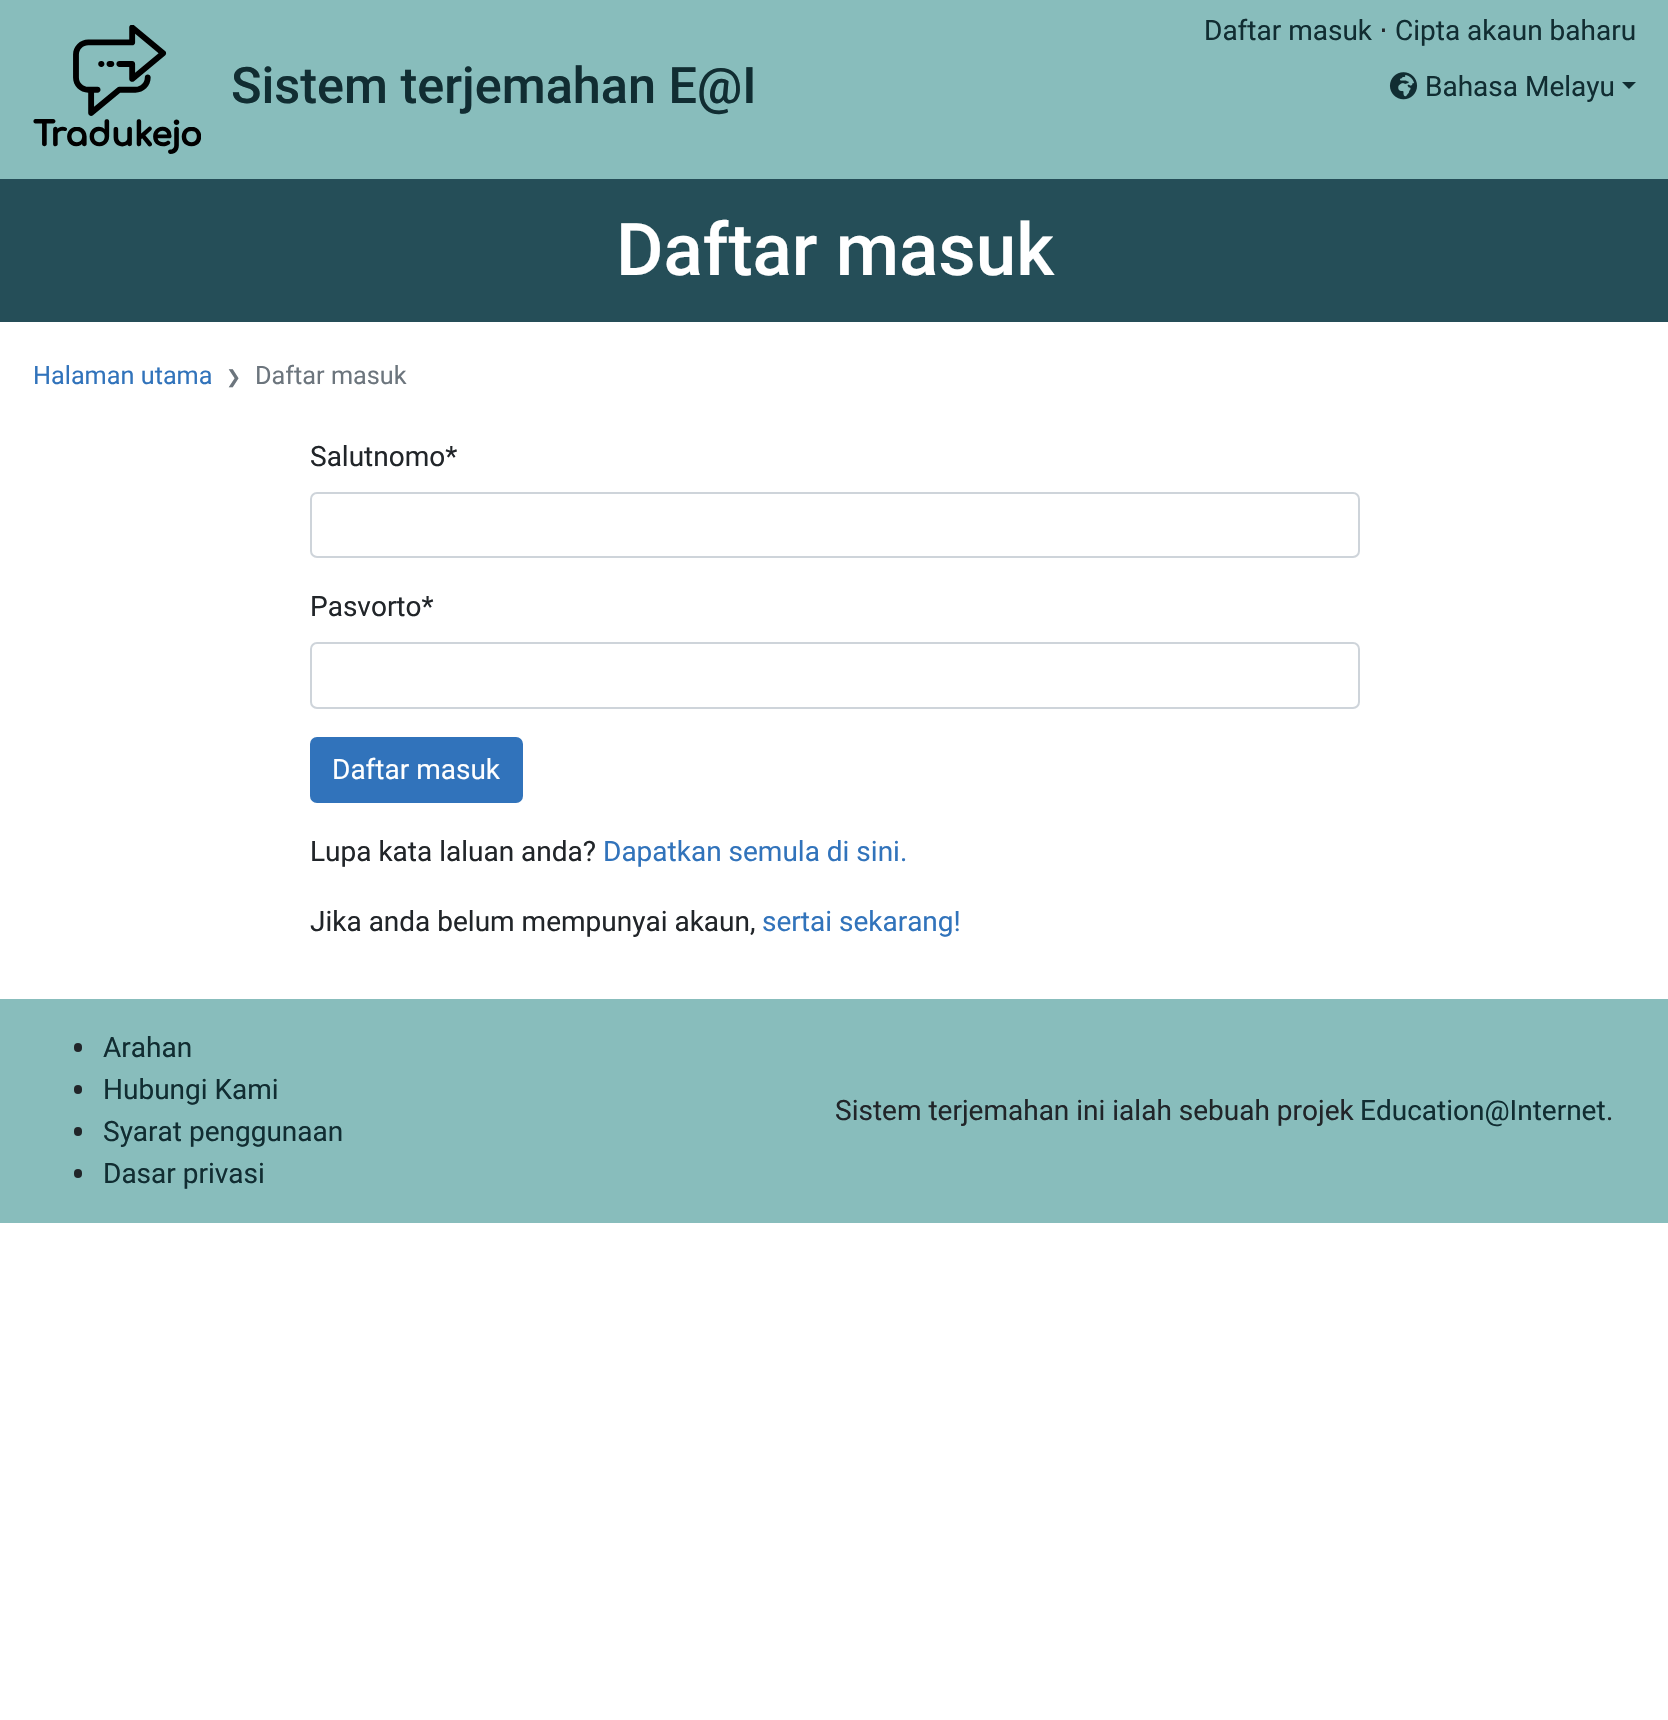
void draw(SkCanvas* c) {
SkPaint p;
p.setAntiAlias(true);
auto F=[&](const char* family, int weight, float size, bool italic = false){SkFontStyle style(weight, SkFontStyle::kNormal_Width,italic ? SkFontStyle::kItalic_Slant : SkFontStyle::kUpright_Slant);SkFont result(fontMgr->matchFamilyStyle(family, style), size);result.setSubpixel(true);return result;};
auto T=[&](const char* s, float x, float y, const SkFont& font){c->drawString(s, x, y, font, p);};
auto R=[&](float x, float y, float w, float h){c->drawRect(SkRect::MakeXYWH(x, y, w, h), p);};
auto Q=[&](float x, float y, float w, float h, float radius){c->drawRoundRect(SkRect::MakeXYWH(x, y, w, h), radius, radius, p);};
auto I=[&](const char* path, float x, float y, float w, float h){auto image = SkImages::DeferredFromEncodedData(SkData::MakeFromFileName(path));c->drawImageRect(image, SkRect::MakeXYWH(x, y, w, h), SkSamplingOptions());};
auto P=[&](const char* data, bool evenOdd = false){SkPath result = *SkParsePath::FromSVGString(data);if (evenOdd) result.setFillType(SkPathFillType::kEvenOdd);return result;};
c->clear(0xffffffff);
p.setColor(0xff88bdbc);
R(0,0,1668,179);
I("1.png",33,25,168,129);
auto f1 = F("Roboto",500,50.4);
p.setColor(0xff112d32);
T("Sistem terjemahan E@I",231,103,f1);
auto f2 = F("Roboto",400,28);
T("Daftar masuk",1204,40,f2);
auto f3 = F("DejaVu Sans",400,28);
p.setColor(0xff212529);
T("⋅",1379,40,f3);
p.setColor(0xff112d32);
T("Cipta akaun baharu",1395,40,f2);
I("2.png",1389,72,29,28);
T("Bahasa Melayu",1425,96,f2);
c->drawPath(P("M1622 82h14l-7 7z"),p);
p.setColor(0xff254e58);
R(0,179,1668,143);
auto f4 = F("Roboto",500,72.75);
p.setColor(0xffffffff);
T("Daftar masuk",616,275,f4);
auto f5 = F("Roboto",400,25.25);
p.setColor(0xff3173bb);
T("Halaman utama",33,384,f5);
auto f6 = F("DejaVu Sans",400,18);
p.setColor(0xff6c757d);
T("❯",226,383,f6);
T("Daftar masuk",255,384,f5);
p.setColor(0xff212529);
T("Salutnomo*",310,466,f2);
p.setStroke(true);
p.setStrokeWidth(2);
p.setColor(0xffced4da);
c->drawRoundRect(SkRect::MakeXYWH(311,493,1048,64),6,6,p);
p.setStroke(false);
p.setColor(0xff212529);
T("Pasvorto*",310,616,f2);
p.setStroke(true);
p.setColor(0xffced4da);
c->drawRoundRect(SkRect::MakeXYWH(311,643,1048,65),6,6,p);
p.setStroke(false);
p.setColor(0xff3173bb);
c->drawRoundRect(SkRect::MakeXYWH(311,738,211,64),6,6,p);
p.setStroke(true);
c->drawRoundRect(SkRect::MakeXYWH(311,738,211,64),6,6,p);
p.setStroke(false);
p.setColor(0xffffffff);
T("Daftar masuk",332,779,f2);
p.setColor(0xff212529);
T("Lupa kata laluan anda?",310,861,f2);
p.setColor(0xff3173bb);
T("Dapatkan semula di sini.",603,861,f2);
p.setColor(0xff212529);
T("Jika anda belum mempunyai akaun,",310,931,f2);
p.setColor(0xff3173bb);
T("sertai sekarang!",762,931,f2);
p.setColor(0xff88bdbc);
R(0,999,1668,224);
p.setColor(0xff212529);
Q(74,1043,8,9,4);
p.setColor(0xff112d32);
T("Arahan",103,1057,f2);
p.setColor(0xff212529);
Q(74,1085,8,9,4);
p.setColor(0xff112d32);
T("Hubungi Kami",103,1099,f2);
p.setColor(0xff212529);
Q(74,1127,8,9,4);
p.setColor(0xff112d32);
T("Syarat penggunaan",103,1141,f2);
p.setColor(0xff212529);
Q(74,1169,8,9,4);
p.setColor(0xff112d32);
T("Dasar privasi",103,1183,f2);
p.setColor(0xff212529);
T("Sistem terjemahan ini ialah sebuah projek",835,1120,f2);
p.setColor(0xff112d32);
T("Education@Internet",1360,1120,f2);
p.setColor(0xff212529);
T(".",1606,1120,f2);
}
